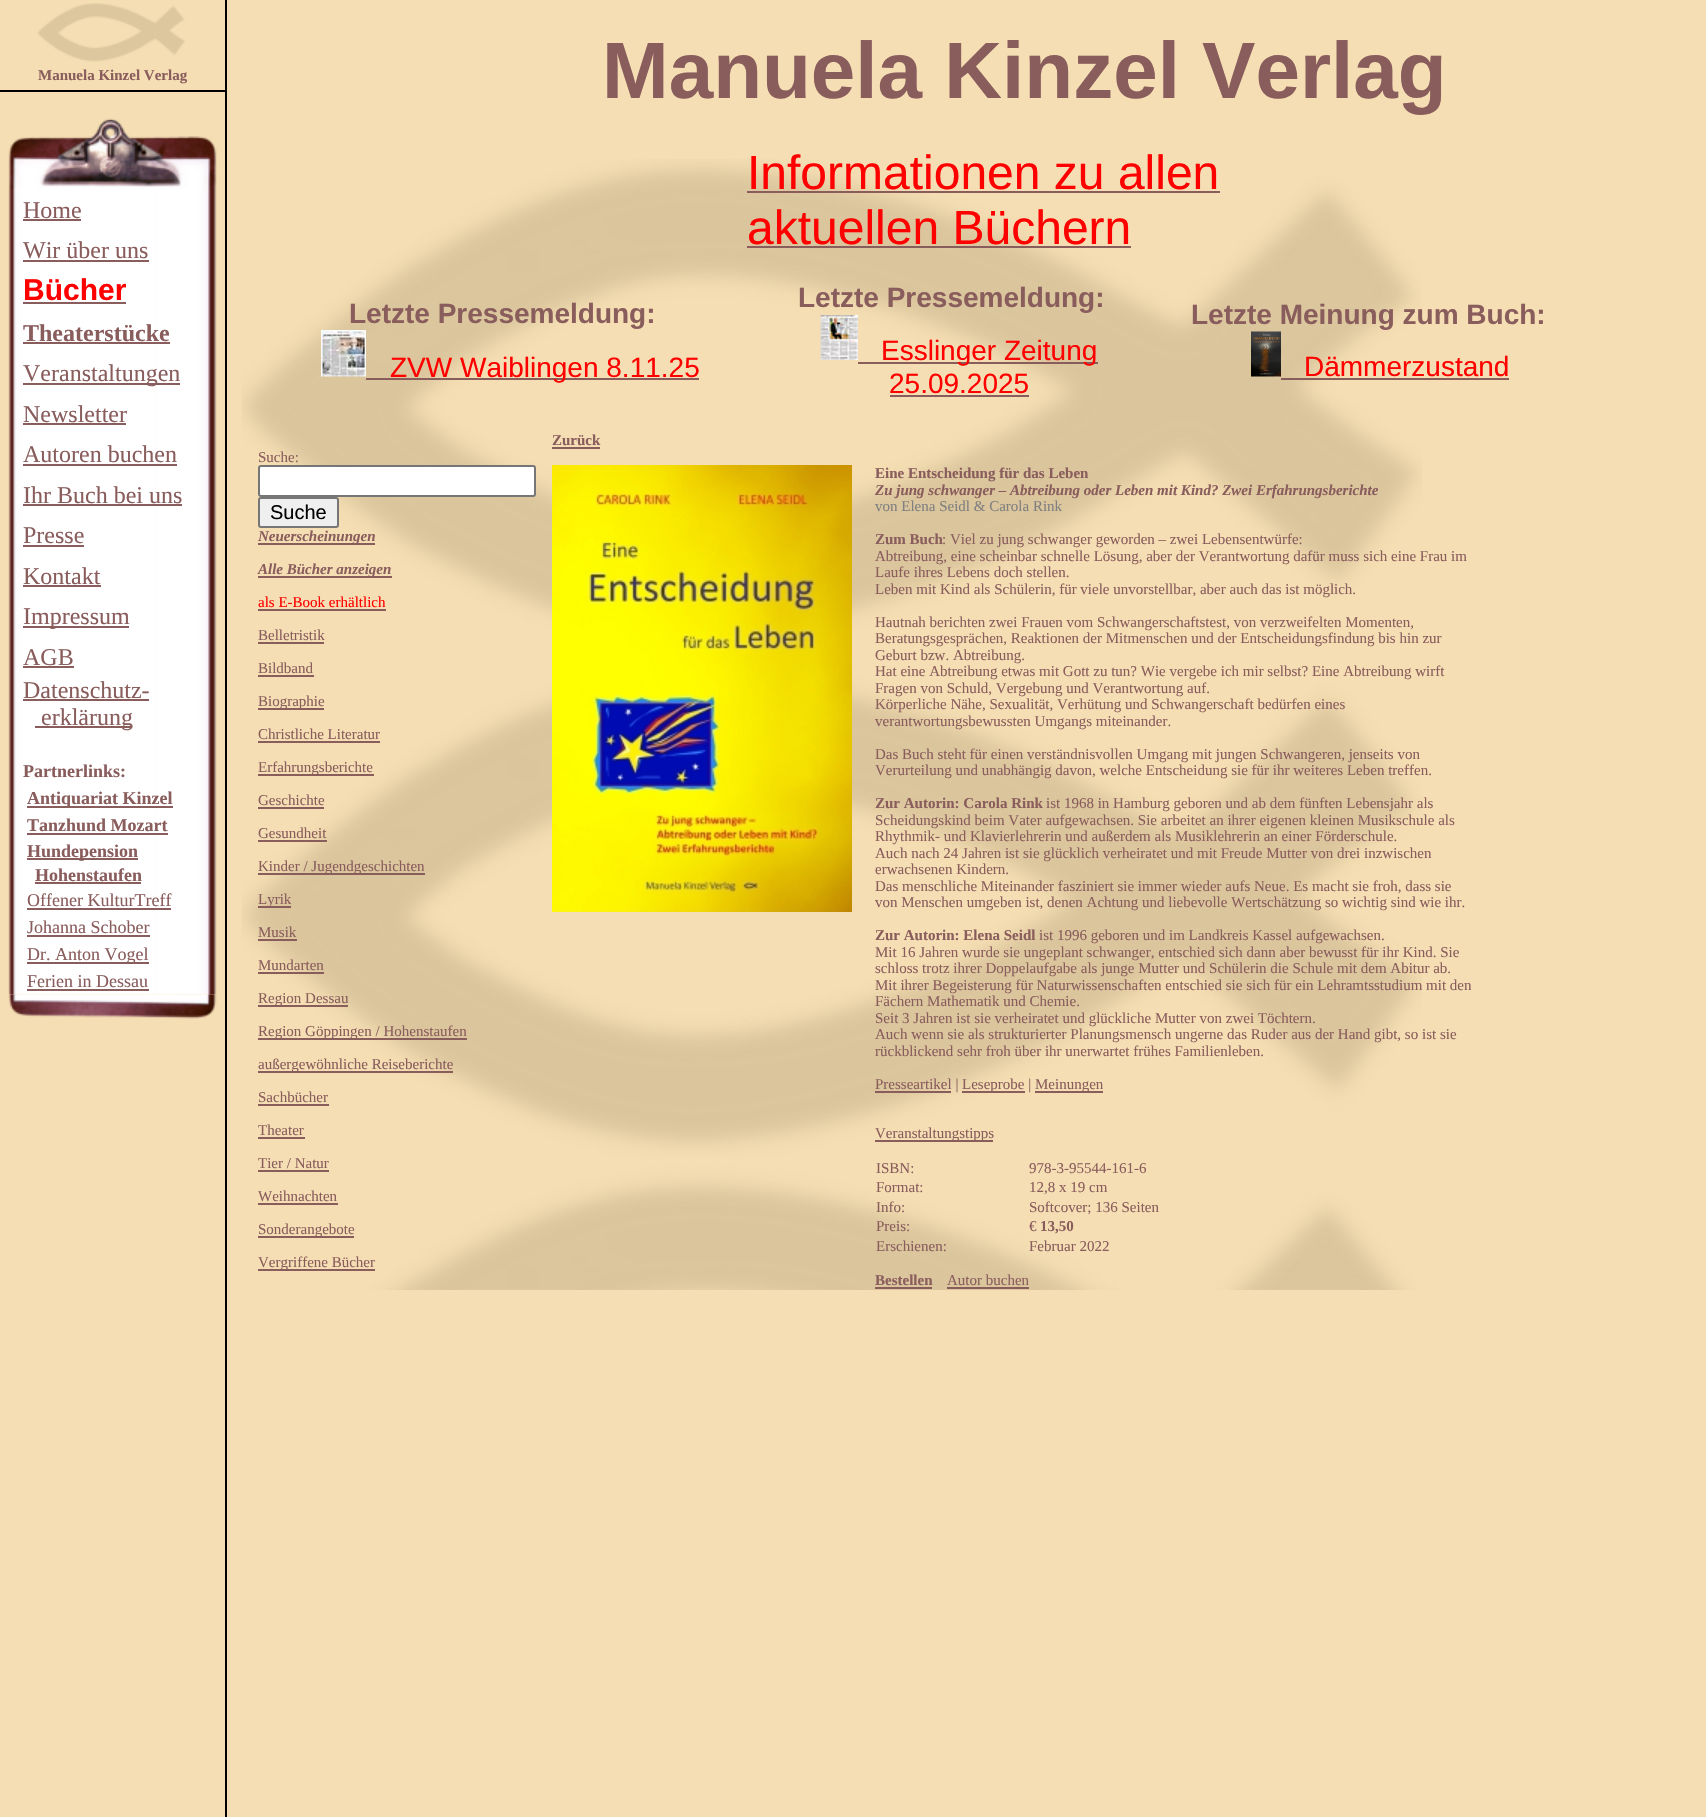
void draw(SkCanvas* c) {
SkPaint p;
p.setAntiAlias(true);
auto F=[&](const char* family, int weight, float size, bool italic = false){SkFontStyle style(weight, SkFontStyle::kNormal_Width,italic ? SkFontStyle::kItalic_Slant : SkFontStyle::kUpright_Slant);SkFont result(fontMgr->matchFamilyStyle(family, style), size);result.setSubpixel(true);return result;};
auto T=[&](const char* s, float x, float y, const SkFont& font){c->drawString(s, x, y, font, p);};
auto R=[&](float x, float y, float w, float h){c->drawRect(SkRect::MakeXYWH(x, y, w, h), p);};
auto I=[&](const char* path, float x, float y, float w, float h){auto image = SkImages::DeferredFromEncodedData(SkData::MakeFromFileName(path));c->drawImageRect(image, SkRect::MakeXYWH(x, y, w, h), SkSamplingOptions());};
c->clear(0xfff5deb3);
I("1.png",37,3,148,59);
auto f1 = F("Liberation Serif",700,15);
p.setColor(0xff8a5d5d);
T("Manuela Kinzel Verlag",38,80,f1);
p.setColor(0xff000000);
R(0,90,225,2);
I("2.png",8,118,209,71);
I("3.png",8,189,209,806);
auto f2 = F("Liberation Serif",400,24);
p.setColor(0xff8a5d5d);
T("Home",23,218,f2);
R(23,219,58,2);
T("Wir über uns",23,258,f2);
R(23,260,126,2);
auto f3 = F("Liberation Sans",700,30);
p.setColor(0xffff0000);
T("Bücher",23,300,f3);
p.setColor(0xff8a5d5d);
R(23,302,103,2);
auto f4 = F("Liberation Serif",700,24);
T("Theaterstücke",23,341,f4);
R(23,342,147,2);
R(23,383,157,2);
T("Veranstaltungen",23,381,f2);
T("Newsletter",23,422,f2);
R(23,423,103,2);
T("Autoren buchen",23,462,f2);
R(23,464,154,2);
T("Ihr Buch bei uns",23,503,f2);
R(23,504,159,2);
T("Presse",23,543,f2);
R(23,545,61,2);
T("Kontakt",23,584,f2);
R(23,585,78,2);
R(23,626,106,2);
T("Impressum",23,624,f2);
T("AGB",23,665,f2);
R(23,666,51,2);
T("Datenschutz-",23,698,f2);
R(23,699,126,2);
R(35,726,97,2);
T("erklärung",41,725,f2);
auto f5 = F("Liberation Serif",700,18);
T("Partnerlinks:",23,777,f5);
R(27,806,146,2);
T("Antiquariat Kinzel",27,804,f5);
T("Tanzhund Mozart",27,831,f5);
R(27,833,141,2);
R(27,858,111,2);
T("Hundepension",27,857,f5);
T("Hohenstaufen",35,881,f5);
R(35,882,106,2);
auto f6 = F("Liberation Serif",400,18);
T("Offener KulturTreff",27,906,f6);
R(27,908,144,2);
T("Johanna Schober",27,933,f6);
R(27,935,123,2);
R(27,962,122,2);
T("Dr. Anton Vogel",27,960,f6);
T("Ferien in Dessau",27,987,f6);
R(27,989,122,2);
I("4.png",8,994,209,25);
p.setColor(0xff000000);
R(225,0,2,1817);
auto f7 = F("Liberation Sans",700,80);
p.setColor(0xff8a5d5d);
T("Manuela Kinzel Verlag",602,98,f7);
I("5.png",241,159,1181,1131);
auto f8 = F("Liberation Sans",400,48);
p.setColor(0xffff0000);
T("Informationen zu allen",747,189,f8);
p.setColor(0xff8a5d5d);
R(747,191,473,2);
p.setColor(0xffff0000);
T("aktuellen Büchern",747,244,f8);
p.setColor(0xff8a5d5d);
R(747,246,384,2);
auto f9 = F("Liberation Sans",700,28);
T("Letzte Pressemeldung:",349,323,f9);
I("6.png",321,330,45,47);
R(366,378,333,2);
auto f10 = F("Liberation Sans",400,28);
p.setColor(0xffff0000);
T("ZVW Waiblingen 8.11.25",390,377,f10);
p.setColor(0xff8a5d5d);
T("Letzte Pressemeldung:",798,307,f9);
I("7.png",820,315,38,45);
R(858,362,240,2);
p.setColor(0xffff0000);
T("Esslinger Zeitung",881,360,f10);
T("25.09.2025",889,393,f10);
p.setColor(0xff8a5d5d);
R(890,395,139,2);
T("Letzte Meinung zum Buch:",1191,324,f9);
I("8.png",1251,331,30,46);
p.setColor(0xffff0000);
T("Dämmerzustand",1304,376,f10);
p.setColor(0xff8a5d5d);
R(1281,378,228,2);
auto f11 = F("Liberation Serif",400,15);
T("Suche:",258,462,f11);
p.setColor(0xffffffff);
c->drawRoundRect(SkRect::MakeXYWH(259,466,276,30),2,2,p);
p.setStroke(true);
p.setStrokeWidth(2);
p.setColor(0xff767676);
c->drawRoundRect(SkRect::MakeXYWH(259,466,276,30),2,2,p);
p.setStroke(false);
p.setColor(0xffefefef);
c->drawRoundRect(SkRect::MakeXYWH(259,498,79,29),2,2,p);
p.setStroke(true);
p.setColor(0xff767676);
c->drawRoundRect(SkRect::MakeXYWH(259,498,79,29),2,2,p);
auto f12 = F("Liberation Sans",400,20);
p.setStroke(false);
p.setColor(0xff000000);
T("Suche",270,519,f12);
p.setColor(0xff8a5d5d);
R(258,543,117,2);
auto f13 = F("Liberation Serif",700,15,true);
T("Neuerscheinungen",258,541,f13);
R(258,576,134,2);
T("Alle Bücher anzeigen",258,574,f13);
p.setColor(0xffff0000);
T("als E-Book erhältlich",258,607,f11);
p.setColor(0xff8a5d5d);
R(258,609,128,2);
T("Belletristik",258,640,f11);
R(258,642,66,2);
T("Bildband",258,673,f11);
R(258,675,56,2);
R(258,708,66,2);
T("Biographie",258,706,f11);
T("Christliche Literatur",258,739,f11);
R(258,741,122,2);
R(258,774,116,2);
T("Erfahrungsberichte",258,772,f11);
T("Geschichte",258,805,f11);
R(258,807,66,2);
T("Gesundheit",258,838,f11);
R(258,840,69,2);
R(258,873,167,2);
T("Kinder / Jugendgeschichten",258,871,f11);
R(258,906,33,2);
T("Lyrik",258,904,f11);
T("Musik",258,937,f11);
R(258,939,39,2);
T("Mundarten",258,970,f11);
R(258,972,66,2);
R(258,1005,90,2);
T("Region Dessau",258,1003,f11);
R(258,1038,209,2);
T("Region Göppingen / Hohenstaufen",258,1036,f11);
R(258,1071,195,2);
T("außergewöhnliche Reiseberichte",258,1069,f11);
T("Sachbücher",258,1102,f11);
R(258,1104,71,2);
T("Theater",258,1135,f11);
R(258,1137,47,2);
T("Tier / Natur",258,1168,f11);
R(258,1170,71,2);
T("Weihnachten",258,1201,f11);
R(258,1203,80,2);
R(258,1236,96,2);
T("Sonderangebote",258,1234,f11);
R(258,1269,117,2);
T("Vergriffene Bücher",258,1267,f11);
T("Zurück",552,445,f1);
R(552,447,48,2);
I("9.png",552,465,300,447);
T("Eine Entscheidung für das Leben",875,478,f1);
T("Zu jung schwanger – Abtreibung oder Leben mit Kind? Zwei Erfahrungsberichte",875,495,f13);
p.setColor(0xff808080);
T("von Elena Seidl & Carola Rink",875,511,f11);
p.setColor(0xff8a5d5d);
T("Zum Buch",875,544,f1);
T(": Viel zu jung schwanger geworden – zwei Lebensentwürfe:",942,544,f11);
T("Abtreibung, eine scheinbar schnelle Lösung, aber der Verantwortung dafür muss sich eine Frau im",875,561,f11);
T("Laufe ihres Lebens doch stellen.",875,577,f11);
T("Leben mit Kind als Schülerin, für viele unvorstellbar, aber auch das ist möglich.",875,594,f11);
T("Hautnah berichten zwei Frauen vom Schwangerschaftstest, von verzweifelten Momenten,",875,627,f11);
T("Beratungsgesprächen, Reaktionen der Mitmenschen und der Entscheidungsfindung bis hin zur",875,643,f11);
T("Geburt bzw. Abtreibung.",875,660,f11);
T("Hat eine Abtreibung etwas mit Gott zu tun? Wie vergebe ich mir selbst? Eine Abtreibung wirft",875,676,f11);
T("Fragen von Schuld, Vergebung und Verantwortung auf.",875,693,f11);
T("Körperliche Nähe, Sexualität, Verhütung und Schwangerschaft bedürfen eines",875,709,f11);
T("verantwortungsbewussten Umgangs miteinander.",875,726,f11);
T("Das Buch steht für einen verständnisvollen Umgang mit jungen Schwangeren, jenseits von",875,759,f11);
T("Verurteilung und unabhängig davon, welche Entscheidung sie für ihr weiteres Leben treffen.",875,775,f11);
T("Zur Autorin: Carola Rink",875,808,f1);
T("ist 1968 in Hamburg geboren und ab dem fünften Lebensjahr als",1046,808,f11);
T("Scheidungskind beim Vater aufgewachsen. Sie arbeitet an ihrer eigenen kleinen Musikschule als",875,825,f11);
T("Rhythmik- und Klavierlehrerin und außerdem als Musiklehrerin an einer Förderschule.",875,841,f11);
T("Auch nach 24 Jahren ist sie glücklich verheiratet und mit Freude Mutter von drei inzwischen",875,858,f11);
T("erwachsenen Kindern.",875,874,f11);
T("Das menschliche Miteinander fasziniert sie immer wieder aufs Neue. Es macht sie froh, dass sie",875,891,f11);
T("von Menschen umgeben ist, denen Achtung und liebevolle Wertschätzung so wichtig sind wie ihr.",875,907,f11);
T("Zur Autorin: Elena Seidl",875,940,f1);
T("ist 1996 geboren und im Landkreis Kassel aufgewachsen.",1039,940,f11);
T("Mit 16 Jahren wurde sie ungeplant schwanger, entschied sich dann aber bewusst für ihr Kind. Sie",875,957,f11);
T("schloss trotz ihrer Doppelaufgabe als junge Mutter und Schülerin die Schule mit dem Abitur ab.",875,973,f11);
T("Mit ihrer Begeisterung für Naturwissenschaften entschied sie sich für ein Lehramtsstudium mit den",875,990,f11);
T("Fächern Mathematik und Chemie.",875,1006,f11);
T("Seit 3 Jahren ist sie verheiratet und glückliche Mutter von zwei Töchtern.",875,1023,f11);
T("Auch wenn sie als strukturierter Planungsmensch ungerne das Ruder aus der Hand gibt, so ist sie",875,1039,f11);
T("rückblickend sehr froh über ihr unerwartet frühes Familienleben.",875,1056,f11);
R(875,1091,76,2);
T("Presseartikel |",875,1089,f11);
R(962,1091,63,2);
T("Leseprobe |",962,1089,f11);
R(1035,1091,68,2);
T("Meinungen",1035,1089,f11);
R(875,1140,118,2);
T("Veranstaltungstipps",875,1138,f11);
T("ISBN:",876,1173,f11);
T("978-3-95544-161-6",1029,1173,f11);
T("Format:",876,1192,f11);
T("12,8 x 19 cm",1029,1192,f11);
T("Info:",876,1212,f11);
T("Softcover; 136 Seiten",1029,1212,f11);
T("Preis:",876,1231,f11);
T("€",1029,1231,f11);
T("13,50",1040,1231,f1);
T("Erschienen:",876,1251,f11);
T("Februar 2022",1029,1251,f11);
T("Bestellen",875,1285,f1);
R(875,1287,57,2);
T("Autor buchen",947,1285,f11);
R(947,1287,82,2);
}
